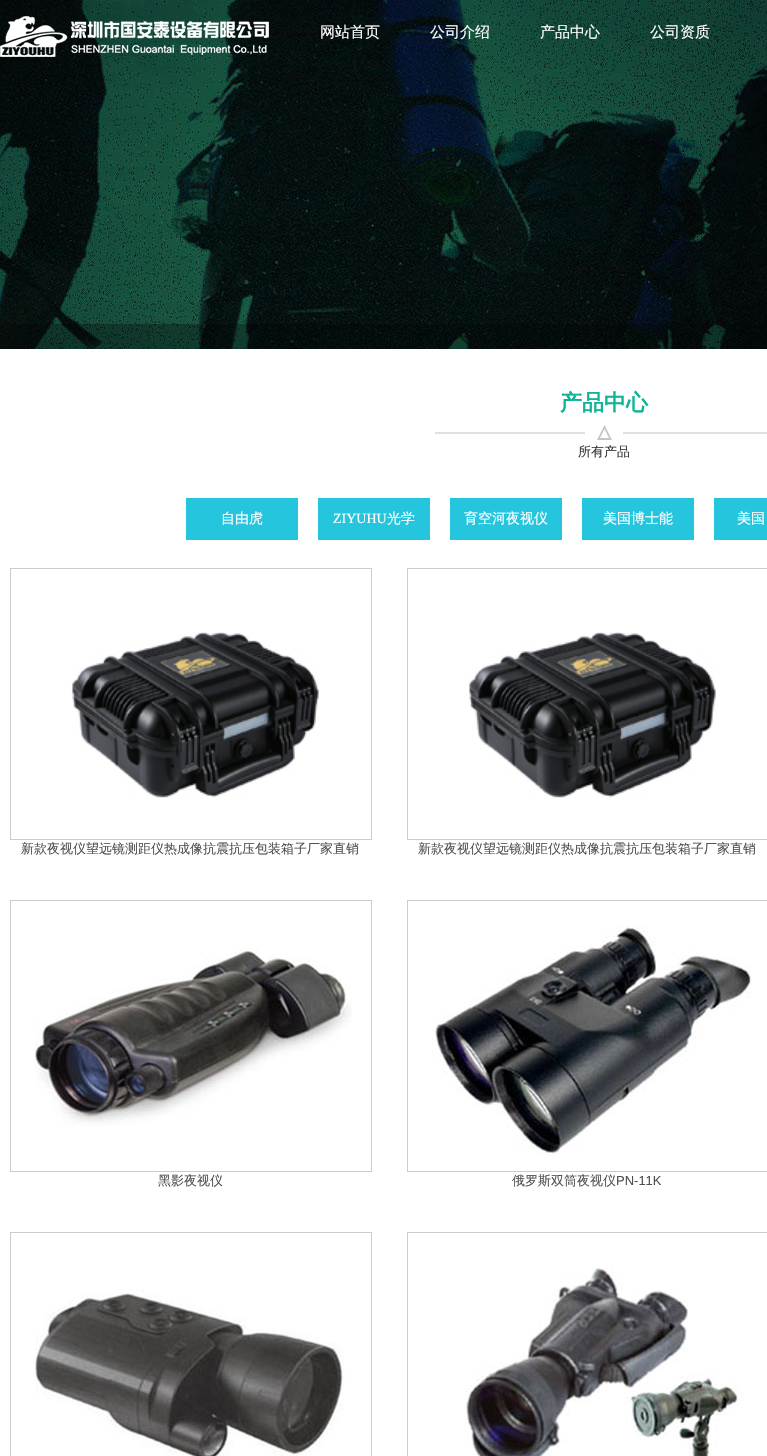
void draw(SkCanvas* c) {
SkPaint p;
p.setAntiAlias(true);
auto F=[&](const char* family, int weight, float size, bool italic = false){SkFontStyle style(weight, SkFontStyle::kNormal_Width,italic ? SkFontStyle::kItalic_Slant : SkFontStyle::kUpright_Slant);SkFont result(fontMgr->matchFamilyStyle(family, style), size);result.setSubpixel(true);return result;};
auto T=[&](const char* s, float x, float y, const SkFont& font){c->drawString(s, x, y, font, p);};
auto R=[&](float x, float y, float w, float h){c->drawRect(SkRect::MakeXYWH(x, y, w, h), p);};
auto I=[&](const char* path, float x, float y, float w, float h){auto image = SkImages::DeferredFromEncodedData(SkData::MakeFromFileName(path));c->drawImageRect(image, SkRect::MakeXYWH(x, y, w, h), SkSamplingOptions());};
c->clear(0xffffffff);
I("1.png",0,0,767,349);
p.setColor(0x4d000000);
R(0,324,767,25);
I("2.png",0,16,269,41);
auto f1 = F("WenQuanYi Zen Hei",500,15);
p.setColor(0xffffffff);
T("网站首页",320,37,f1);
T("公司介绍",430,37,f1);
T("产品中心",540,37,f1);
T("公司资质",650,37,f1);
auto f2 = F("WenQuanYi Zen Hei",700,22);
p.setColor(0xff0eb493);
T("产品中心",560,410,f2);
I("3.png",435,425,332,15);
auto f3 = F("WenQuanYi Zen Hei",500,13);
p.setColor(0xff333333);
T("所有产品",578,456,f3);
p.setColor(0xff26c5de);
R(186,498,112,42);
auto f4 = F("WenQuanYi Zen Hei",500,14);
p.setColor(0xffffffff);
T("自由虎",221,523,f4);
p.setColor(0xff26c5de);
R(318,498,112,42);
auto f5 = F("Liberation Serif",400,14);
p.setColor(0xffffffff);
T("ZIYUHU",333,523,f5);
T("光学",387,523,f4);
p.setColor(0xff26c5de);
R(450,498,112,42);
p.setColor(0xffffffff);
T("育空河夜视仪",464,523,f4);
p.setColor(0xff26c5de);
R(582,498,112,42);
p.setColor(0xffffffff);
T("美国博士能",603,523,f4);
p.setColor(0xff26c5de);
R(714,498,53,42);
p.setColor(0xffffffff);
T("美国",737,523,f4);
p.setStroke(true);
p.setStrokeWidth(1);
p.setColor(0xffcccccc);
c->drawRect(SkRect::MakeXYWH(10.5,568.5,361,271),p);
I("4.png",71,632,248,166);
p.setStroke(false);
p.setColor(0xff505050);
T("新款夜视仪望远镜测距仪热成像抗震抗压包装箱子厂家直销",21,853,f3);
p.setStroke(true);
p.setColor(0xffcccccc);
c->drawRect(SkRect::MakeXYWH(407.5,568.5,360,271),p);
I("5.png",468,632,248,166);
p.setStroke(false);
p.setColor(0xff505050);
T("新款夜视仪望远镜测距仪热成像抗震抗压包装箱子厂家直销",418,853,f3);
p.setStroke(true);
p.setColor(0xffcccccc);
c->drawRect(SkRect::MakeXYWH(10.5,900.5,361,271),p);
I("6.png",35,949,317,177);
p.setStroke(false);
p.setColor(0xff505050);
T("黑影夜视仪",158,1185,f3);
p.setStroke(true);
p.setColor(0xffcccccc);
c->drawRect(SkRect::MakeXYWH(407.5,900.5,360,271),p);
I("7.png",432,925,320,232);
p.setStroke(false);
p.setColor(0xff505050);
T("俄罗斯双筒夜视仪",512,1185,f3);
auto f6 = F("Liberation Sans",400,13);
T("PN-11K",616,1185,f6);
p.setStroke(true);
p.setColor(0xffcccccc);
c->drawRect(SkRect::MakeXYWH(10.5,1232.5,361,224),p);
I("8.png",35,1289,311,167);
c->drawRect(SkRect::MakeXYWH(407.5,1232.5,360,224),p);
I("9.png",464,1267,280,189);
}
